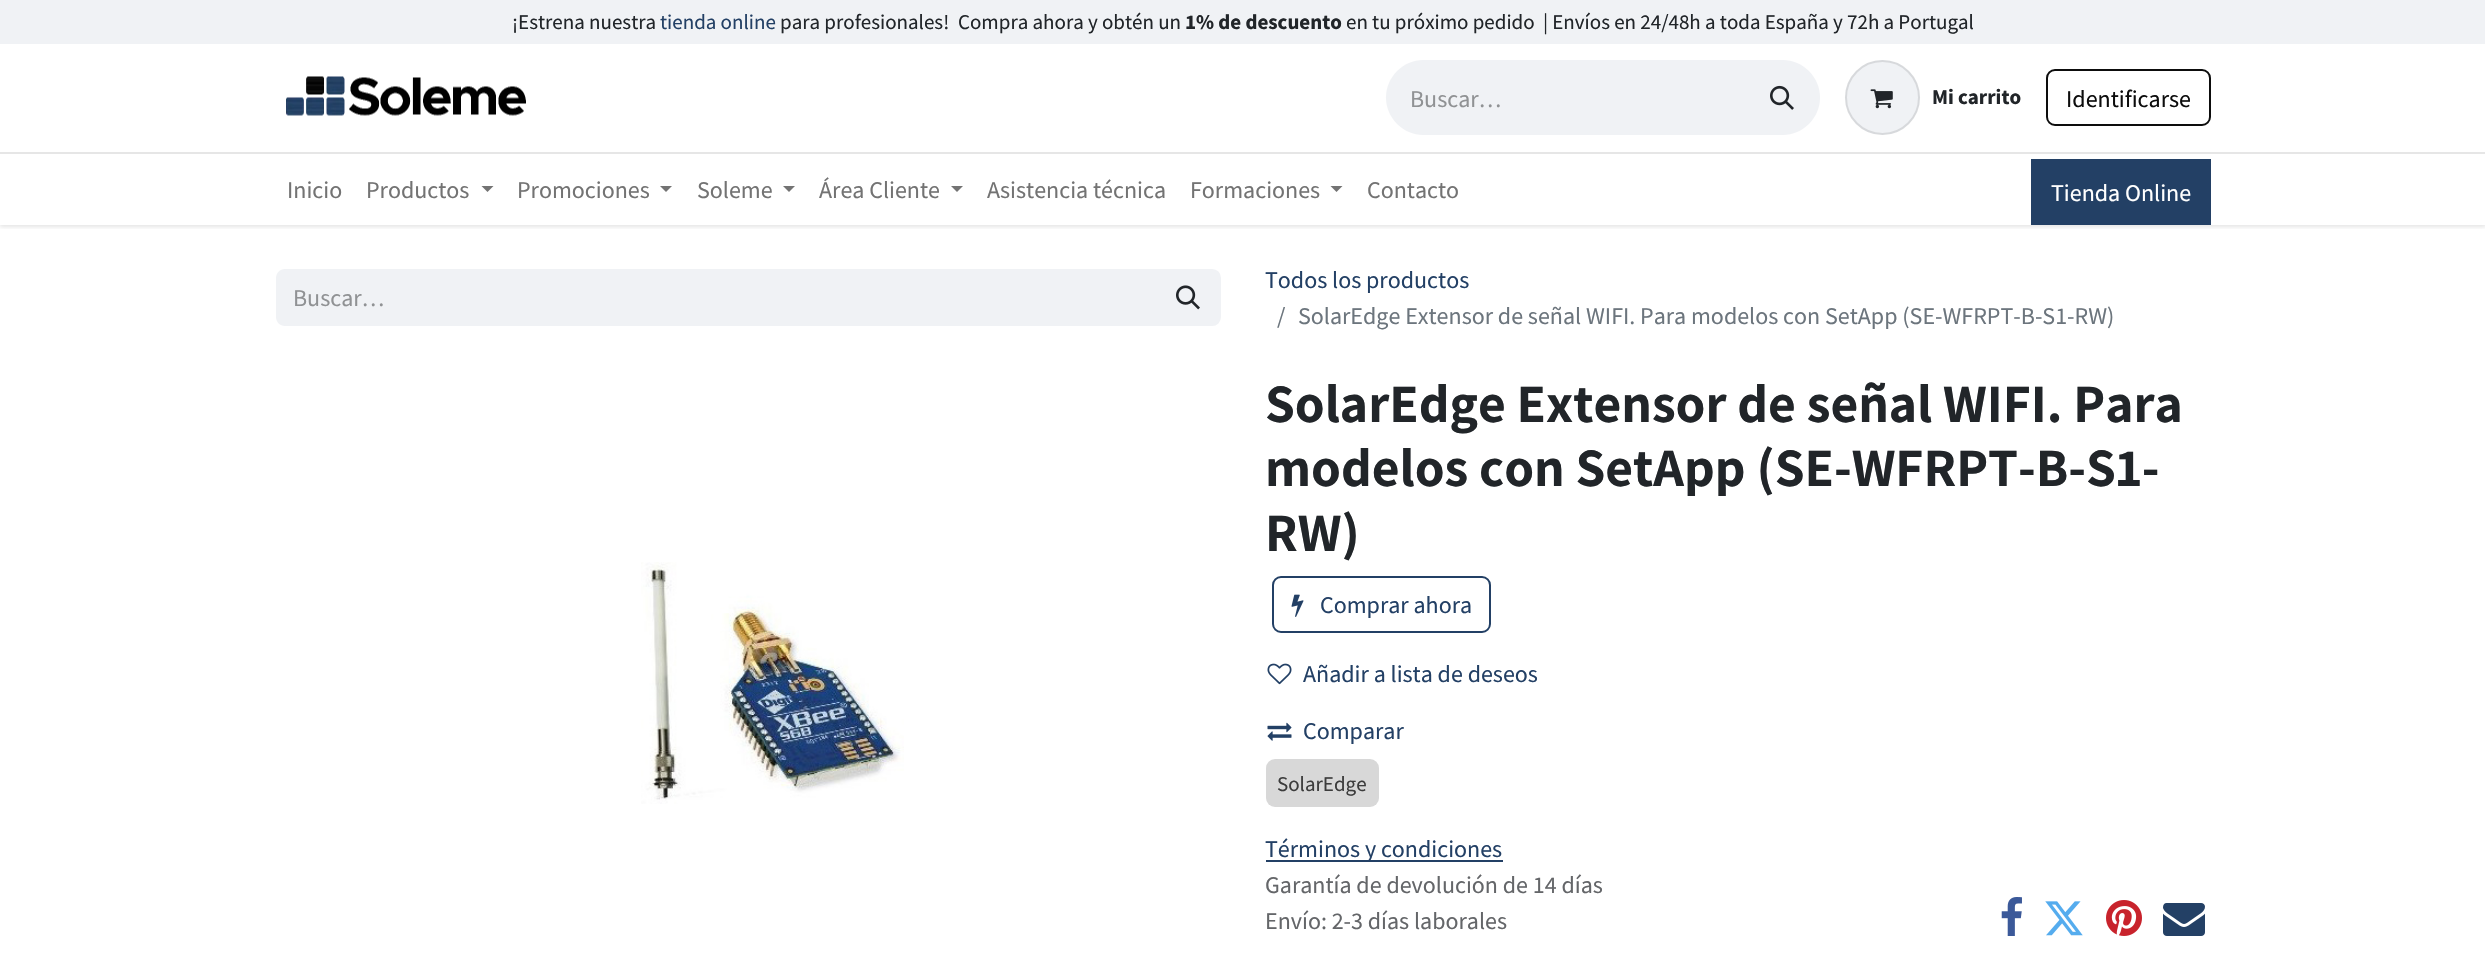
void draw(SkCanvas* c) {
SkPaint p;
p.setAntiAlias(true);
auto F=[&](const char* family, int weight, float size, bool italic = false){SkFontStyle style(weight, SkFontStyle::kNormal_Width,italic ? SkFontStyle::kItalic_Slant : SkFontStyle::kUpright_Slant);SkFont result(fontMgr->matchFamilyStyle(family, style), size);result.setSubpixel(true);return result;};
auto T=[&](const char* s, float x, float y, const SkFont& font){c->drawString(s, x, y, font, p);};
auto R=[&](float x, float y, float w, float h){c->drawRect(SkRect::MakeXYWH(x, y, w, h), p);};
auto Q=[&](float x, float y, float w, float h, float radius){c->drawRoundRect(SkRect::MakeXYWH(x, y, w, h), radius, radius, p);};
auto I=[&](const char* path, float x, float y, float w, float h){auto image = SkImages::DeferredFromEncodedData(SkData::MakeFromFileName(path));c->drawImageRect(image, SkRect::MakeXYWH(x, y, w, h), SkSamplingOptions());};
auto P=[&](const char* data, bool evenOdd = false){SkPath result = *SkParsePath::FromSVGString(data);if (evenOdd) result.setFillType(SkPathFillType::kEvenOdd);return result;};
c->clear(0xffffffff);
c->save();
c->clipRect(SkRect::MakeXYWH(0,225,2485,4));
p.setColor(0x1a000000);
p.setMaskFilter(SkMaskFilter::MakeBlur(kNormal_SkBlurStyle, 2));
c->drawRect(SkRect::MakeXYWH(0,2,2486,225),p);
p.setMaskFilter(nullptr);
c->restore();
p.setColor(0xfff0f2f5);
R(0,0,2485,44);
auto f1 = F("Source Sans Pro",400,21);
p.setColor(0xff212529);
T("¡Estrena nuestra",512,29,f1);
p.setColor(0xff234065);
T("tienda online",660,29,f1);
p.setColor(0xff212529);
T("para profesionales!",780,29,f1);
T("Compra ahora y obtén un",958,29,f1);
auto f2 = F("Source Sans Pro",700,21);
T("1% de descuento",1185,29,f2);
T("en tu próximo pedido  | Envíos en 24/48h a toda España y 72h a Portugal",1346,29,f1);
I("1.png",286,76,240,40);
p.setColor(0xfff0f2f5);
c->drawPath(P("M1423.5 60h322.5v75h-322.5c-20.5 0-37.5-17-37.5-37.5c0-20.5 17-37.5 37.5-37.5z"),p);
auto f3 = F("Source Sans Pro",400,24);
p.setColor(0xff909294);
T("Buscar…",1410,107,f3);
p.setColor(0xfff0f2f5);
c->drawPath(P("M1745 60h37.5c20.5 0 37.5 17 37.5 37.5c0 20.5-17 37.5-37.5 37.5h-37.5z"),p);
I("2.png",1770,85,24,25);
c->drawCircle(1882.5,97.5,37.5,p);
p.setStroke(true);
p.setStrokeWidth(2);
p.setColor(0x1a000000);
c->drawCircle(1882.5,97.5,36.5,p);
I("3.png",1870,89,23,20);
p.setStroke(false);
p.setColor(0xff212529);
T("Mi carrito",1932,104,f2);
p.setStroke(true);
p.setColor(0xff0d0d0d);
c->drawRoundRect(SkRect::MakeXYWH(2047,70,163,55),8,8,p);
p.setStroke(false);
T("Identificarse",2066,107,f3);
p.setColor(0xffe6e6e6);
R(0,152,2485,2);
p.setColor(0xff737373);
T("Inicio",287,198,f3);
T("Productos",366,198,f3);
c->drawPath(P("M481.5 186h12l-6 6z"),p);
T("Promociones",517,198,f3);
c->drawPath(P("M660 186h12l-6 6z"),p);
T("Soleme",697,198,f3);
c->drawPath(P("M783 186h12l-6 6z"),p);
T("Área Cliente",819,198,f3);
c->drawPath(P("M951 186h12l-6 6z"),p);
T("Asistencia técnica",987,198,f3);
T("Formaciones",1190,198,f3);
c->drawPath(P("M1330.5 186h12l-6 6z"),p);
T("Contacto",1367,198,f3);
p.setColor(0xff234065);
R(2031,159,180,66);
p.setColor(0xffffffff);
T("Tienda Online",2051,201,f3);
p.setColor(0xfff0f2f5);
c->drawPath(P("M285 269h873v57h-873c-5 0-9-4-9-9v-39c0-5 4-9 9-9z"),p);
p.setColor(0xff909294);
T("Buscar…",293,306,f3);
p.setColor(0xfff0f2f5);
c->drawPath(P("M1158 270h54c4.5 0 8 3.5 8 8v39c0 4.5-3.5 8-8 8h-54z"),p);
p.setStroke(true);
c->drawPath(P("M1158 270h54c4.5 0 8 3.5 8 8v39c0 4.5-3.5 8-8 8h-54z"),p);
I("4.png",1176,285,24,25);
p.setStroke(false);
p.setColor(0xff234065);
T("Todos los productos",1265,288,f3);
p.setColor(0xff6c757d);
T("/",1277,324,f3);
T("SolarEdge Extensor de señal WIFI. Para modelos con SetApp (SE-WFRPT-B-S1-RW)",1298,324,f3);
I("5.png",641,562,263,242);
auto f4 = F("Assistant",700,54);
p.setColor(0xff212529);
T("SolarEdge Extensor de señal WIFI. Para",1265,422,f4);
T("modelos con SetApp (SE-WFRPT-B-S1-",1265,486,f4);
T("RW)",1265,551,f4);
p.setStroke(true);
p.setColor(0xff234065);
c->drawRoundRect(SkRect::MakeXYWH(1273,577,217,55),8,8,p);
I("6.png",1291,594,13,23);
p.setStroke(false);
T("Comprar ahora",1320,613,f3);
I("7.png",1267,663,25,22);
T("Añadir a lista de deseos",1303,682,f3);
I("8.png",1267,722,25,19);
T("Comparar",1303,739,f3);
p.setColor(0xff3c3c3c);
T("SolarEdge",1277,791,f1);
p.setColor(0x333c3c3c);
Q(1266,759,113,48,9);
p.setColor(0xff234065);
R(1266,860,237,2);
T("Términos y condiciones",1265,857,f3);
p.setColor(0xff646669);
T("Garantía de devolución de 14 días",1265,893,f3);
T("Envío: 2-3 días laborales",1265,929,f3);
I("9.png",2001,897,21,39);
I("10.png",2045,901,38,35);
I("11.png",2106,900,36,36);
I("12.png",2163,903,42,33);
}
